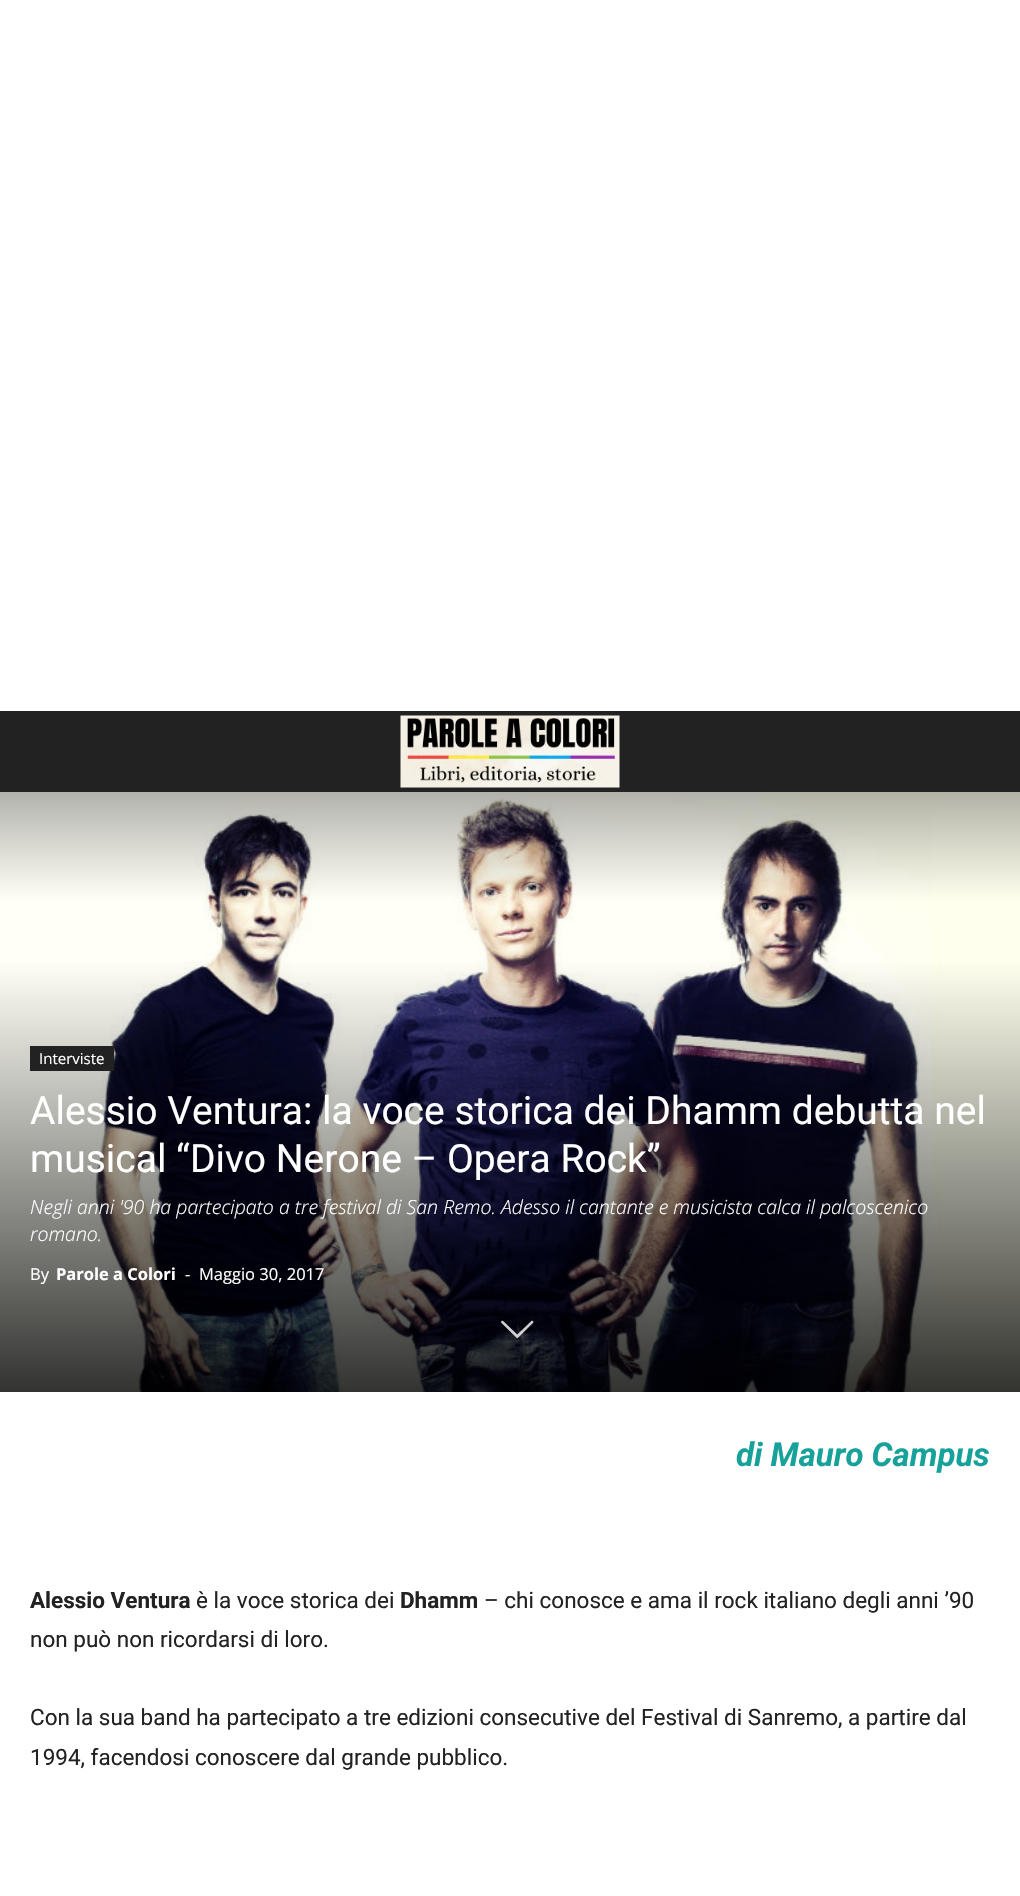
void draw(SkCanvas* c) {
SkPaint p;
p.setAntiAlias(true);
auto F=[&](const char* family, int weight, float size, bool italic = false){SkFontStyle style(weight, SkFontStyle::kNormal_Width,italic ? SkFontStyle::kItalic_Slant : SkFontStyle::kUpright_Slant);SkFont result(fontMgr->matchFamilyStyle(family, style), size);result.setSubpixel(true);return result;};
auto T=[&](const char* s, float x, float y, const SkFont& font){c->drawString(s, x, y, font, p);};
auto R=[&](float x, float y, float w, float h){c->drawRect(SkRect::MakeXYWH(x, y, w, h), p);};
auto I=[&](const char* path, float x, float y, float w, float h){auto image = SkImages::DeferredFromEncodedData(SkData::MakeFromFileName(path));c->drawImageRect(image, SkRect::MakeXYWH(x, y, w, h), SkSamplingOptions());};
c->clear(0xffffffff);
p.setColor(0xff222222);
R(0,711,1020,81);
I("1.png",400,715,220,73);
I("2.png",0,792,1020,600);
R(30,1046,84,25);
auto f1 = F("Open Sans",400,15);
p.setColor(0xffffffff);
T("Interviste",39,1064,f1);
auto f2 = F("Roboto",400,39);
T("Alessio Ventura: la voce storica dei Dhamm debutta nel",30,1124,f2);
T("musical “Divo Nerone – Opera Rock”",30,1172,f2);
auto f3 = F("Open Sans",300,19.5,true);
T("Negli anni '90 ha partecipato a tre festival di San Remo. Adesso il cantante e musicista calca il palcoscenico",30,1214,f3);
T("romano.",30,1241,f3);
auto f4 = F("Open Sans",400,16.5);
T("By",30,1280,f4);
auto f5 = F("Open Sans",700,16.5);
T("Parole a Colori",56,1280,f5);
T("-",185,1280,f4);
T("Maggio 30, 2017",199,1280,f4);
I("3.png",501,1320,33,19);
auto f6 = F("Roboto",700,33,true);
p.setColor(0xff16a19a);
T("di Mauro Campus",736,1466,f6);
auto f7 = F("Roboto",700,22.5);
p.setColor(0xff222222);
T("Alessio Ventura",30,1608,f7);
auto f8 = F("Roboto",400,22.5);
T("è la voce storica dei",196,1608,f8);
T("Dhamm",400,1608,f7);
T("– chi conosce e ama il rock italiano degli anni ’90",484,1608,f8);
T("non può non ricordarsi di loro.",30,1647,f8);
T("Con la sua band ha partecipato a tre edizioni consecutive del Festival di Sanremo, a partire dal",30,1725,f8);
T("1994, facendosi conoscere dal grande pubblico.",30,1765,f8);
}
